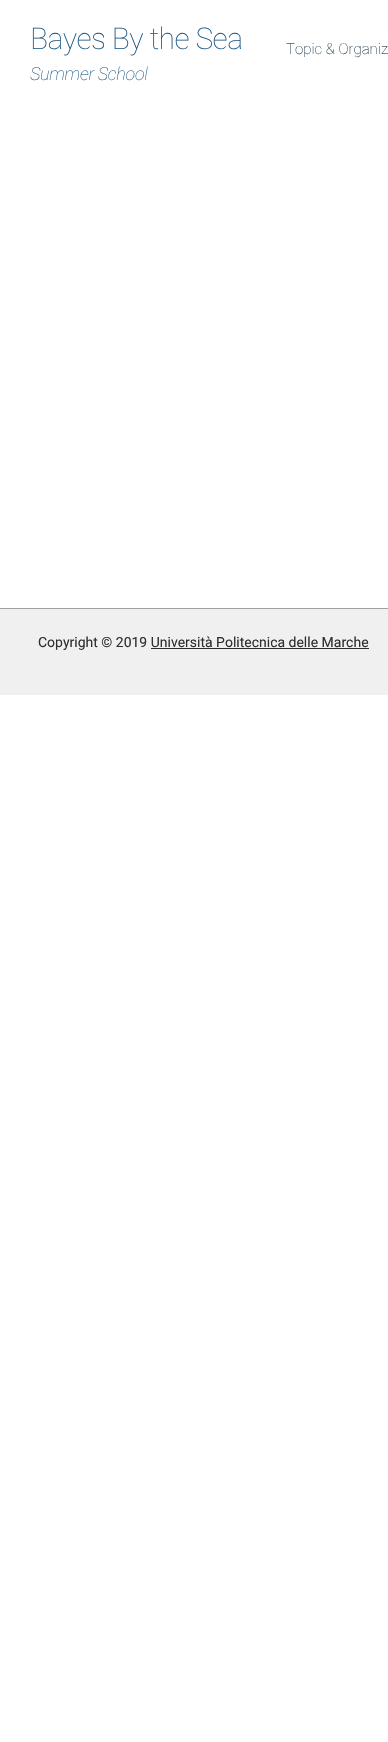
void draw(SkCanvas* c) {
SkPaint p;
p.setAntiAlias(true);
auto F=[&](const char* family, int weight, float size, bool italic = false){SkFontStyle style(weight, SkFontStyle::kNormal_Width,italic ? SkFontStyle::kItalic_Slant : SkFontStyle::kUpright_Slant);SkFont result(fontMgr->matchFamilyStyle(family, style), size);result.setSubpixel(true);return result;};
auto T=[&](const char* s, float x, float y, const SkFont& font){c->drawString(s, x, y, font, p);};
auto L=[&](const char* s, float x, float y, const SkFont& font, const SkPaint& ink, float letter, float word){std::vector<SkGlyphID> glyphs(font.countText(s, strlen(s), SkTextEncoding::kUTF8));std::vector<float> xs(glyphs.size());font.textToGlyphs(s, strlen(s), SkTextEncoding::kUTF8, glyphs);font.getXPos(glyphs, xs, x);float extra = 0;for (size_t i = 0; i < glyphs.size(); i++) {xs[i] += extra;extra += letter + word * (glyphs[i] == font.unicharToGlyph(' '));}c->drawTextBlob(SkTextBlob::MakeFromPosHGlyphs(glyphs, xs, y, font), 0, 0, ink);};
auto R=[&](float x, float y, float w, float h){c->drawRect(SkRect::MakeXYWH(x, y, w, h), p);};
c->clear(0xffffffff);
auto f1 = F("Roboto",100,30);
p.setColor(0xff215b85);
L("Bayes By the Sea",30,49,f1,p,-.6,0);
auto f2 = F("Roboto",100,15);
p.setColor(0xff112e42);
T("Topic & Organiz",286,54,f2);
auto f3 = F("Roboto",100,18,true);
p.setColor(0xff215b85);
L("Summer School",30,80,f3,p,-.4,0);
p.setColor(0xfff0f0f0);
R(0,609,388,86);
p.setColor(0xffa0a09f);
R(0,608,388,1);
auto f4 = F("Roboto",400,14);
p.setColor(0xff2f2e2e);
T("Copyright © 2019 Università Politecnica delle Marche",38,647,f4);
R(151,648,218,1);
}
